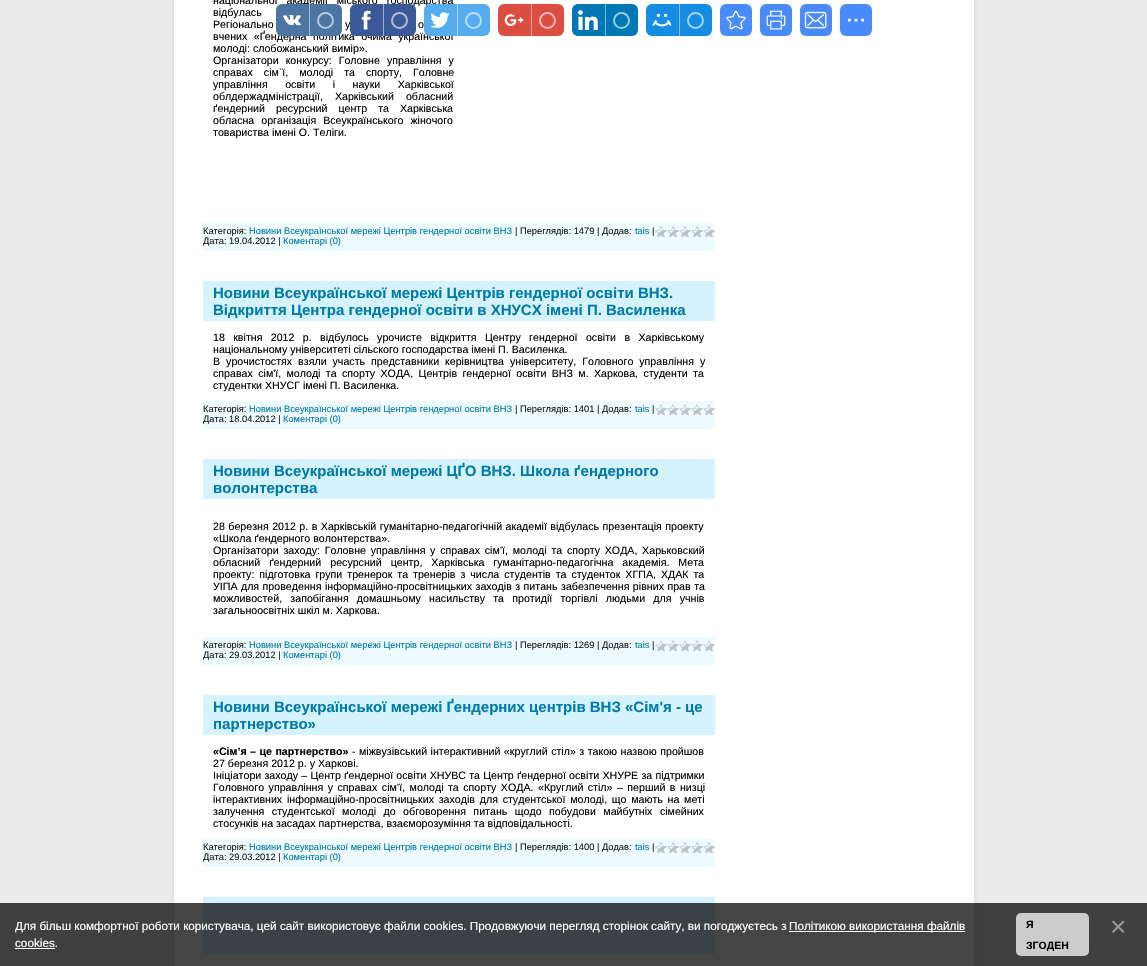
void draw(SkCanvas* c) {
SkPaint p;
p.setAntiAlias(true);
auto F=[&](const char* family, int weight, float size, bool italic = false){SkFontStyle style(weight, SkFontStyle::kNormal_Width,italic ? SkFontStyle::kItalic_Slant : SkFontStyle::kUpright_Slant);SkFont result(fontMgr->matchFamilyStyle(family, style), size);result.setSubpixel(true);return result;};
auto T=[&](const char* s, float x, float y, const SkFont& font){c->drawString(s, x, y, font, p);};
auto L=[&](const char* s, float x, float y, const SkFont& font, const SkPaint& ink, float letter, float word){std::vector<SkGlyphID> glyphs(font.countText(s, strlen(s), SkTextEncoding::kUTF8));std::vector<float> xs(glyphs.size());font.textToGlyphs(s, strlen(s), SkTextEncoding::kUTF8, glyphs);font.getXPos(glyphs, xs, x);float extra = 0;for (size_t i = 0; i < glyphs.size(); i++) {xs[i] += extra;extra += letter + word * (glyphs[i] == font.unicharToGlyph(' '));}c->drawTextBlob(SkTextBlob::MakeFromPosHGlyphs(glyphs, xs, y, font), 0, 0, ink);};
auto R=[&](float x, float y, float w, float h){c->drawRect(SkRect::MakeXYWH(x, y, w, h), p);};
auto Q=[&](float x, float y, float w, float h, float radius){c->drawRoundRect(SkRect::MakeXYWH(x, y, w, h), radius, radius, p);};
auto I=[&](const char* path, float x, float y, float w, float h){auto image = SkImages::DeferredFromEncodedData(SkData::MakeFromFileName(path));c->drawImageRect(image, SkRect::MakeXYWH(x, y, w, h), SkSamplingOptions());};
c->clear(0xffececec);
I("1.png",164,0,820,966);
auto f1 = F("Liberation Sans",400,10.65);
p.setColor(0xff000000);
L("національної академії міського господарства",213,4,f1,p,0,6);
L("відбулась",213,16,f1,p,0,21);
L("Регіонально",213,28,f1,p,0,1);
L("у",345,28,f1,p,0,1);
L("о",418,28,f1,p,0,1);
L("вчених «Ґендерна політика очима української",213,40,f1,p,0,3.5);
T("молоді: слобожанський вимір».",213,52,f1);
L("Організатори конкурсу: Головне управління у",213,64,f1,p,0,4);
L("справах сім`ї, молоді та спорту, Головне",213,76,f1,p,0,8);
L("управління освіти і науки Харківської",213,88,f1,p,0,14.5);
L("облдержадміністрації, Харківський обласний",213,100,f1,p,0,9);
L("ґендерний ресурсний центр та Харківська",213,112,f1,p,0,8);
L("обласна організація Всеукраїнського жіночого",213,124,f1,p,0,4);
T("товариства імені О. Теліги.",213,136,f1);
p.setColor(0xffedfaff);
R(203,223,512,28);
auto f2 = F("Liberation Sans",400,9.3);
p.setColor(0xff1a1a1a);
T("Категорія:",203,234,f2);
p.setColor(0xff007baa);
T("Новини Всеукраїнської мережі Центрів гендерної освіти ВНЗ",249,234,f2);
p.setColor(0xff1a1a1a);
T("| Переглядів: 1479 | Додав:",515,234,f2);
p.setColor(0xff007baa);
T("tais",635,234,f2);
p.setColor(0xff1a1a1a);
T("|",652,234,f2);
I("2.png",655,226,60,12);
T("Дата: 19.04.2012 |",203,244,f2);
p.setColor(0xff007baa);
T("Коментарі (0)",283,244,f2);
p.setColor(0xffd5f3ff);
R(203,281,512,40);
auto f3 = F("Liberation Sans",700,15);
p.setColor(0xff007baa);
T("Новини Всеукраїнської мережі Центрів гендерної освіти ВНЗ.",213,298,f3);
T("Відкриття Центра гендерної освіти в ХНУСХ імені П. Василенка",213,315,f3);
p.setColor(0xff000000);
L("18 квітня 2012 р. відбулось урочисте відкриття Центру гендерної освіти в Харківському",213,341,f1,p,0,5.4);
T("національному університеті сільского господарства імені П. Василенка.",213,353,f1);
L("В урочистостях взяли участь представники керівництва університету, Головного управління у",213,365,f1,p,0,3);
L("справах сім'ї, молоді та спорту ХОДА, Центрів гендерної освіти ВНЗ м. Харкова, студенти та",213,377,f1,p,0,2.4);
T("студентки ХНУСГ імені П. Василенка.",213,389,f1);
p.setColor(0xffedfaff);
R(203,401,512,28);
p.setColor(0xff1a1a1a);
T("Категорія:",203,412,f2);
p.setColor(0xff007baa);
T("Новини Всеукраїнської мережі Центрів гендерної освіти ВНЗ",249,412,f2);
p.setColor(0xff1a1a1a);
T("| Переглядів: 1401 | Додав:",515,412,f2);
p.setColor(0xff007baa);
T("tais",635,412,f2);
p.setColor(0xff1a1a1a);
T("|",652,412,f2);
I("2.png",655,404,60,12);
T("Дата: 18.04.2012 |",203,422,f2);
p.setColor(0xff007baa);
T("Коментарі (0)",283,422,f2);
p.setColor(0xffd5f3ff);
R(203,459,512,40);
p.setColor(0xff007baa);
T("Новини Всеукраїнської мережі ЦҐО ВНЗ. Школа ґендерного",213,476,f3);
T("волонтерства",213,493,f3);
p.setColor(0xff000000);
L("28 березня 2012 р. в Харківській гуманітарно-педагогічній академії відбулась презентація проекту",213,530,f1,p,0,.5);
T("«Школа ґендерного волонтерства».",213,542,f1);
L("Організатори заходу: Головне управління у справах сім’ї, молоді та спорту ХОДА, Харьковский",213,554,f1,p,0,1.75);
L("обласний ґендерний ресурсний центр, Харківська гуманітарно-педагогічна академія. Мета",213,566,f1,p,0,6);
L("проекту: підготовка групи тренерок та тренерів з числа студентів та студенток ХГПА, ХДАК та",213,578,f1,p,0,2);
L("УІПА для проведення інформаційно-просвітницьких заходів з питань забезпечення рівних прав та",213,590,f1,p,0,.5);
L("можливостей, запобігання домашньому насильству та протидії торгівлі людьми для учнів",213,602,f1,p,0,5.25);
T("загальноосвітніх шкіл м. Харкова.",213,614,f1);
p.setColor(0xffedfaff);
R(203,637,512,28);
p.setColor(0xff1a1a1a);
T("Категорія:",203,648,f2);
p.setColor(0xff007baa);
T("Новини Всеукраїнської мережі Центрів гендерної освіти ВНЗ",249,648,f2);
p.setColor(0xff1a1a1a);
T("| Переглядів: 1269 | Додав:",515,648,f2);
p.setColor(0xff007baa);
T("tais",635,648,f2);
p.setColor(0xff1a1a1a);
T("|",652,648,f2);
I("2.png",655,640,60,12);
T("Дата: 29.03.2012 |",203,658,f2);
p.setColor(0xff007baa);
T("Коментарі (0)",283,658,f2);
p.setColor(0xffd5f3ff);
R(203,695,512,40);
p.setColor(0xff007baa);
T("Новини Всеукраїнської мережі Ґендерних центрів ВНЗ «Сім'я - це",213,712,f3);
T("партнерство»",213,729,f3);
auto f4 = F("Liberation Sans",700,10.65);
p.setColor(0xff000000);
L("«Сім’я – це партнерство»",213,755,f4,p,0,.5);
L("- міжвузівський інтерактивний «круглий стіл» з такою назвою пройшов",352,755,f1,p,0,.5);
T("27 березня 2012 р. у Харкові.",213,767,f1);
L("Ініціатори заходу – Центр ґендерної освіти ХНУВС та Центр ґендерної освіти ХНУРЕ за підтримки",213,779,f1,p,0,.25);
L("Головного управління у справах сім’ї, молоді та спорту ХОДА. «Круглий стіл» – перший в низці",213,791,f1,p,0,1.5);
L("інтерактивних інформаційно-просвітницьких заходів для студентської молоді, що мають на меті",213,803,f1,p,0,1.75);
L("залучення студентської молоді до обговорення питань щодо побудови майбутніх сімейних",213,815,f1,p,0,4.5);
T("стосунків на засадах партнерства, взаєморозуміння та відповідальності.",213,827,f1);
p.setColor(0xffedfaff);
R(203,839,512,28);
p.setColor(0xff1a1a1a);
T("Категорія:",203,850,f2);
p.setColor(0xff007baa);
T("Новини Всеукраїнської мережі Центрів гендерної освіти ВНЗ",249,850,f2);
p.setColor(0xff1a1a1a);
T("| Переглядів: 1400 | Додав:",515,850,f2);
p.setColor(0xff007baa);
T("tais",635,850,f2);
p.setColor(0xff1a1a1a);
T("|",652,850,f2);
I("2.png",655,842,60,12);
T("Дата: 29.03.2012 |",203,860,f2);
p.setColor(0xff007baa);
T("Коментарі (0)",283,860,f2);
p.setColor(0xffd5f3ff);
R(203,897,512,57);
p.setColor(0xff4d75a3);
Q(276,4,66,32,6);
I("3.png",283,15,18,11);
p.setColor(0xffa6bad1);
R(309,4,1,32);
p.setStroke(true);
p.setStrokeWidth(2);
p.setColor(0xffb8c8da);
c->drawCircle(325.5,20.5,7.5,p);
p.setStroke(false);
p.setColor(0xff3b5998);
Q(350,4,66,32,6);
I("4.png",361,10,10,20);
p.setColor(0xff9daccc);
R(383,4,1,32);
p.setStroke(true);
p.setColor(0xffb1bdd6);
c->drawCircle(399.5,20.5,7.5,p);
p.setStroke(false);
p.setColor(0xff55acee);
Q(424,4,66,32,6);
I("5.png",430,12,20,16);
p.setColor(0xffaad6f7);
R(457,4,1,32);
p.setStroke(true);
p.setColor(0xffbbdef8);
c->drawCircle(473.5,20.5,7.5,p);
p.setStroke(false);
p.setColor(0xffdc4e41);
Q(498,4,66,32,6);
I("6.png",504,14,20,12);
p.setColor(0xffeea7a0);
R(531,4,1,32);
p.setStroke(true);
p.setColor(0xfff1b8b3);
c->drawCircle(547.5,20.5,7.5,p);
p.setStroke(false);
p.setColor(0xff0077b5);
Q(572,4,66,32,6);
I("7.png",578,10,20,20);
p.setColor(0xff80bbda);
R(605,4,1,32);
p.setStroke(true);
p.setColor(0xff99c9e1);
c->drawCircle(621.5,20.5,7.5,p);
p.setStroke(false);
p.setColor(0xff168de2);
Q(646,4,66,32,6);
I("8.png",652,13,20,14);
p.setColor(0xff8bc6f1);
R(679,4,1,32);
p.setStroke(true);
p.setColor(0xffa2d1f3);
c->drawCircle(695.5,20.5,7.5,p);
p.setStroke(false);
p.setColor(0xff498bfa);
Q(720,4,32,32,6);
I("9.png",726,10,20,20);
Q(760,4,32,32,6);
I("10.png",766,10,20,20);
Q(800,4,32,32,6);
I("11.png",804,11,23,18);
Q(840,4,32,32,6);
I("12.png",847,18,18,4);
p.setColor(0xba000000);
R(0,903,1147,63);
auto f5 = F("Liberation Sans",400,11.73);
p.setColor(0xffffffff);
T("Для більш комфортної роботи користувача, цей сайт використовує файли cookies. Продовжуючи перегляд сторінок сайту, ви погоджуєтесь з",15,930,f5);
R(789,931,176,1);
T("Політикою використання файлів",789,930,f5);
T("cookies.",15,947,f5);
R(15,948,40,1);
p.setColor(0xffcccccc);
Q(1016,913,73,43,5);
auto f6 = F("Liberation Sans",700,10.5);
p.setColor(0xff000000);
T("Я",1026,928,f6);
T("ЗГОДЕН",1026,949,f6);
auto f7 = F("Liberation Sans",400,28);
p.setColor(0xff999999);
T("×",1110,936,f7);
}
